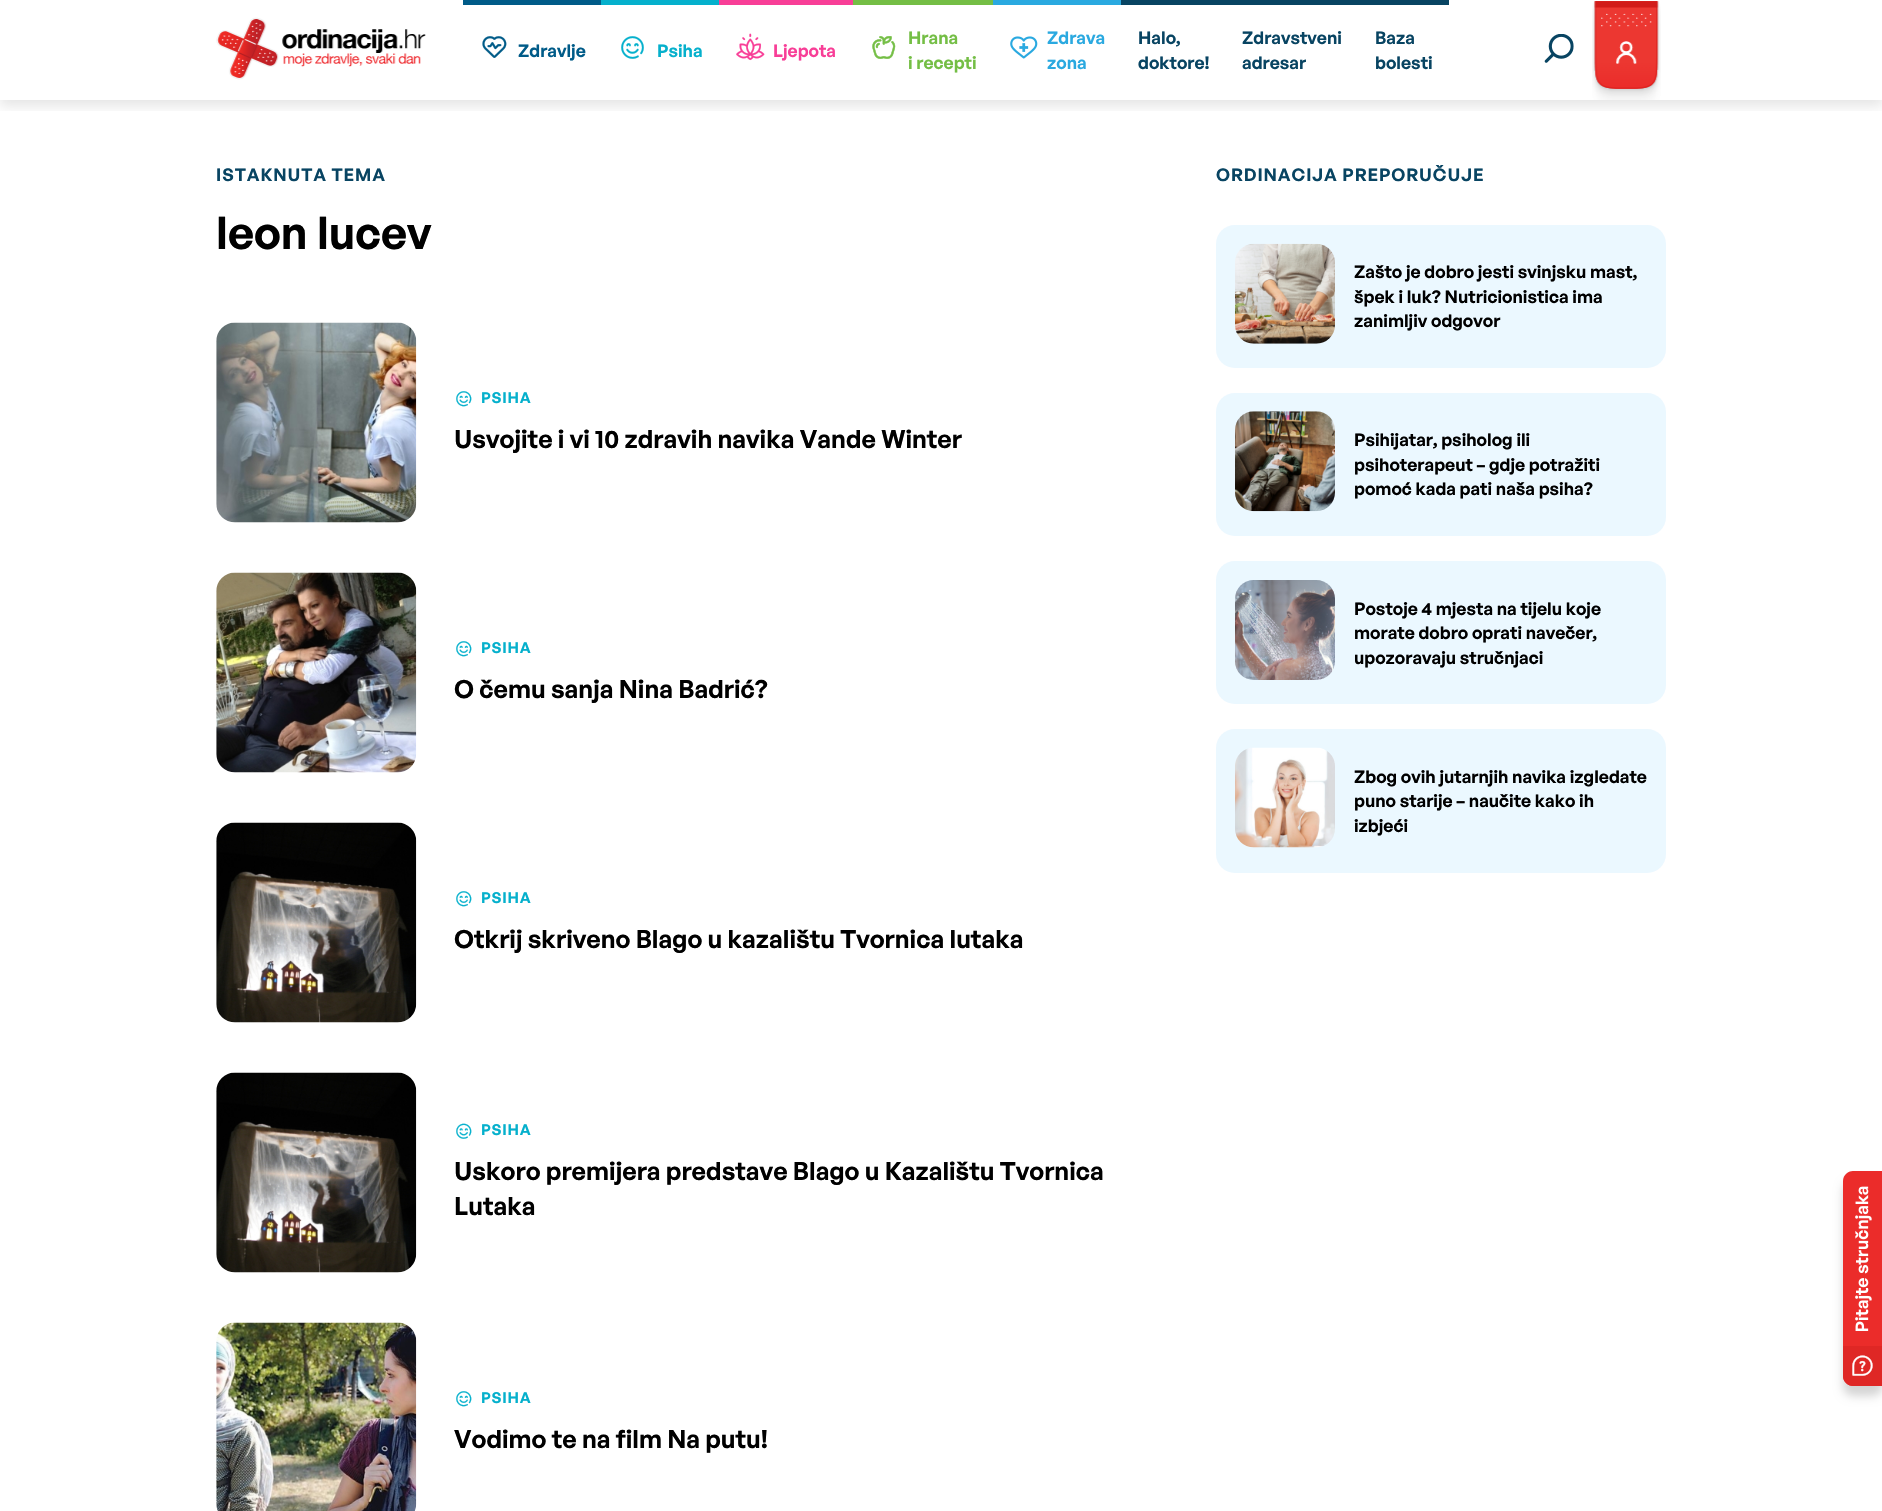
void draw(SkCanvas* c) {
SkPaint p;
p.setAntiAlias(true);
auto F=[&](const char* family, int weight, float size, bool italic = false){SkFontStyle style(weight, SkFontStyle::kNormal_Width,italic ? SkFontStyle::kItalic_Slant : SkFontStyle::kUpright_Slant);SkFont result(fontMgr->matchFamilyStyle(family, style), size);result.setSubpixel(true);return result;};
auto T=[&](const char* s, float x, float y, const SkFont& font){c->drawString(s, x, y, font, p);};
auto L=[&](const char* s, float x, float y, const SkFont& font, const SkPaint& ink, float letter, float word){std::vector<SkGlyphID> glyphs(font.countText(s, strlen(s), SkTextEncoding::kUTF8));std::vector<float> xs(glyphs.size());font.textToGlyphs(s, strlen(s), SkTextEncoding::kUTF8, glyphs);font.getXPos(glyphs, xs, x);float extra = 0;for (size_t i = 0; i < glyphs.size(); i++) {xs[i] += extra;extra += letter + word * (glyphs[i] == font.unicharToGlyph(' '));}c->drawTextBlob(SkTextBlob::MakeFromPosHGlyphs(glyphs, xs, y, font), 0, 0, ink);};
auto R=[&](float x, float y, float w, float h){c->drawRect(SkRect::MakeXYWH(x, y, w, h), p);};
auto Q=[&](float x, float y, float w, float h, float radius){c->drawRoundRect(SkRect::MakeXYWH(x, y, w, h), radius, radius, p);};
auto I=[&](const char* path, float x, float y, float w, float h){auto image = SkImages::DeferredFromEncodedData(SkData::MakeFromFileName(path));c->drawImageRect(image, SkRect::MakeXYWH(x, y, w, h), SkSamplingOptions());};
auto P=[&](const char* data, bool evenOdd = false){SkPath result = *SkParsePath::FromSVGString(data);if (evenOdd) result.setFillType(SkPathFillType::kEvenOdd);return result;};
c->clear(0xffffffff);
c->save();
c->clipRect(SkRect::MakeXYWH(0,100,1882,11));
p.setColor(0x1a000000);
p.setMaskFilter(SkMaskFilter::MakeBlur(kNormal_SkBlurStyle, 6));
c->drawRect(SkRect::MakeXYWH(0,6,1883,100),p);
p.setMaskFilter(nullptr);
c->restore();
I("1.png",216,17,210,63);
p.setColor(0xff005b88);
R(463,0,138,5);
I("2.png",482,36,25,22);
auto f1 = F("General Sans",600,17.5);
T("Zdravlje",518,57,f1);
p.setColor(0xff05b0cc);
R(601,0,118,5);
I("3.png",621,36,23,23);
T("Psiha",657,57,f1);
p.setColor(0xfff83e97);
R(719,0,134,5);
I("4.png",736,33,29,28);
T("Ljepota",773,57,f1);
p.setColor(0xff74be45);
R(853,0,140,5);
I("5.png",872,36,24,23);
T("Hrana",908,44,f1);
T("i recepti",908,69,f1);
p.setColor(0xff2aa9e0);
R(993,0,128,5);
I("6.png",1010,36,28,23);
T("Zdrava",1047,44,f1);
T("zona",1047,69,f1);
p.setColor(0xff084462);
R(1121,0,328,5);
T("Halo,",1138,44,f1);
T("doktore!",1138,69,f1);
T("Zdravstveni",1242,44,f1);
T("adresar",1242,69,f1);
T("Baza",1375,44,f1);
T("bolesti",1375,69,f1);
I("7.png",1544,34,30,29);
I("8.png",1592,1,69,99);
L("ISTAKNUTA TEMA",216,181,f1,p,.9,0);
auto f2 = F("General Sans",600,45);
p.setColor(0xff000000);
T("leon lucev",216,249,f2);
I("9.png",216,322,201,201);
I("10.png",456,391,16,16);
auto f3 = F("General Sans",600,15);
p.setColor(0xff05b0cc);
L("PSIHA",481,403,f3,p,.75,0);
auto f4 = F("General Sans",600,25);
p.setColor(0xff000000);
T("Usvojite i vi 10 zdravih navika Vande Winter",454,448,f4);
I("11.png",216,572,201,201);
I("10.png",456,641,16,16);
p.setColor(0xff05b0cc);
L("PSIHA",481,653,f3,p,.75,0);
p.setColor(0xff000000);
T("O čemu sanja Nina Badrić?",454,698,f4);
I("12.png",216,822,201,201);
I("10.png",456,891,16,16);
p.setColor(0xff05b0cc);
L("PSIHA",481,903,f3,p,.75,0);
p.setColor(0xff000000);
T("Otkrij skriveno Blago u kazalištu Tvornica lutaka",454,948,f4);
I("13.png",216,1072,201,201);
I("14.png",456,1123,16,16);
p.setColor(0xff05b0cc);
L("PSIHA",481,1135,f3,p,.75,0);
p.setColor(0xff000000);
T("Uskoro premijera predstave Blago u Kazalištu Tvornica",454,1180,f4);
T("Lutaka",454,1215,f4);
I("15.png",216,1322,201,189);
I("10.png",456,1391,16,16);
p.setColor(0xff05b0cc);
L("PSIHA",481,1403,f3,p,.75,0);
p.setColor(0xff000000);
T("Vodimo te na film Na putu!",454,1448,f4);
p.setColor(0xff084462);
L("ORDINACIJA PREPORUČUJE",1216,181,f1,p,.9,0);
p.setColor(0xffebf8ff);
Q(1216,225,450,143,19);
I("16.png",1235,243,100,101);
p.setColor(0xff000000);
T("Zašto je dobro jesti svinjsku mast,",1354,278,f1);
T("špek i luk? Nutricionistica ima",1354,303,f1);
T("zanimljiv odgovor",1354,327,f1);
p.setColor(0xffebf8ff);
Q(1216,393,450,143,19);
I("17.png",1235,411,100,101);
p.setColor(0xff000000);
T("Psihijatar, psiholog ili",1354,446,f1);
T("psihoterapeut – gdje potražiti",1354,471,f1);
T("pomoć kada pati naša psiha?",1354,495,f1);
p.setColor(0xffebf8ff);
Q(1216,561,450,143,19);
I("18.png",1235,580,100,100);
p.setColor(0xff000000);
T("Postoje 4 mjesta na tijelu koje",1354,615,f1);
T("morate dobro oprati navečer,",1354,639,f1);
T("upozoravaju stručnjaci",1354,664,f1);
p.setColor(0xffebf8ff);
Q(1216,729,450,144,19);
I("19.png",1235,747,100,101);
p.setColor(0xff000000);
T("Zbog ovih jutarnjih navika izgledate",1354,783,f1);
T("puno starije – naučite kako ih",1354,807,f1);
T("izbjeći",1354,832,f1);
p.setColor(0x2b000000);
p.setMaskFilter(SkMaskFilter::MakeBlur(kNormal_SkBlurStyle, 5));
c->drawRoundRect(SkRect::MakeXYWH(1843,1181,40,215),10,10,p);
p.setMaskFilter(nullptr);
p.setColor(0xffeb2c2a);
c->drawPath(P("M1853 1171h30v215h-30c-5.5 0-10-4.5-10-10v-195c0-5.5 4.5-10 10-10z"),p);
I("20.png",1855,1186,17,145);
p.setColor(0xffdf2725);
c->drawPath(P("M1843 1346h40v40h-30c-5.5 0-10-4.5-10-10z"),p);
I("21.png",1852,1355,21,21);
}
